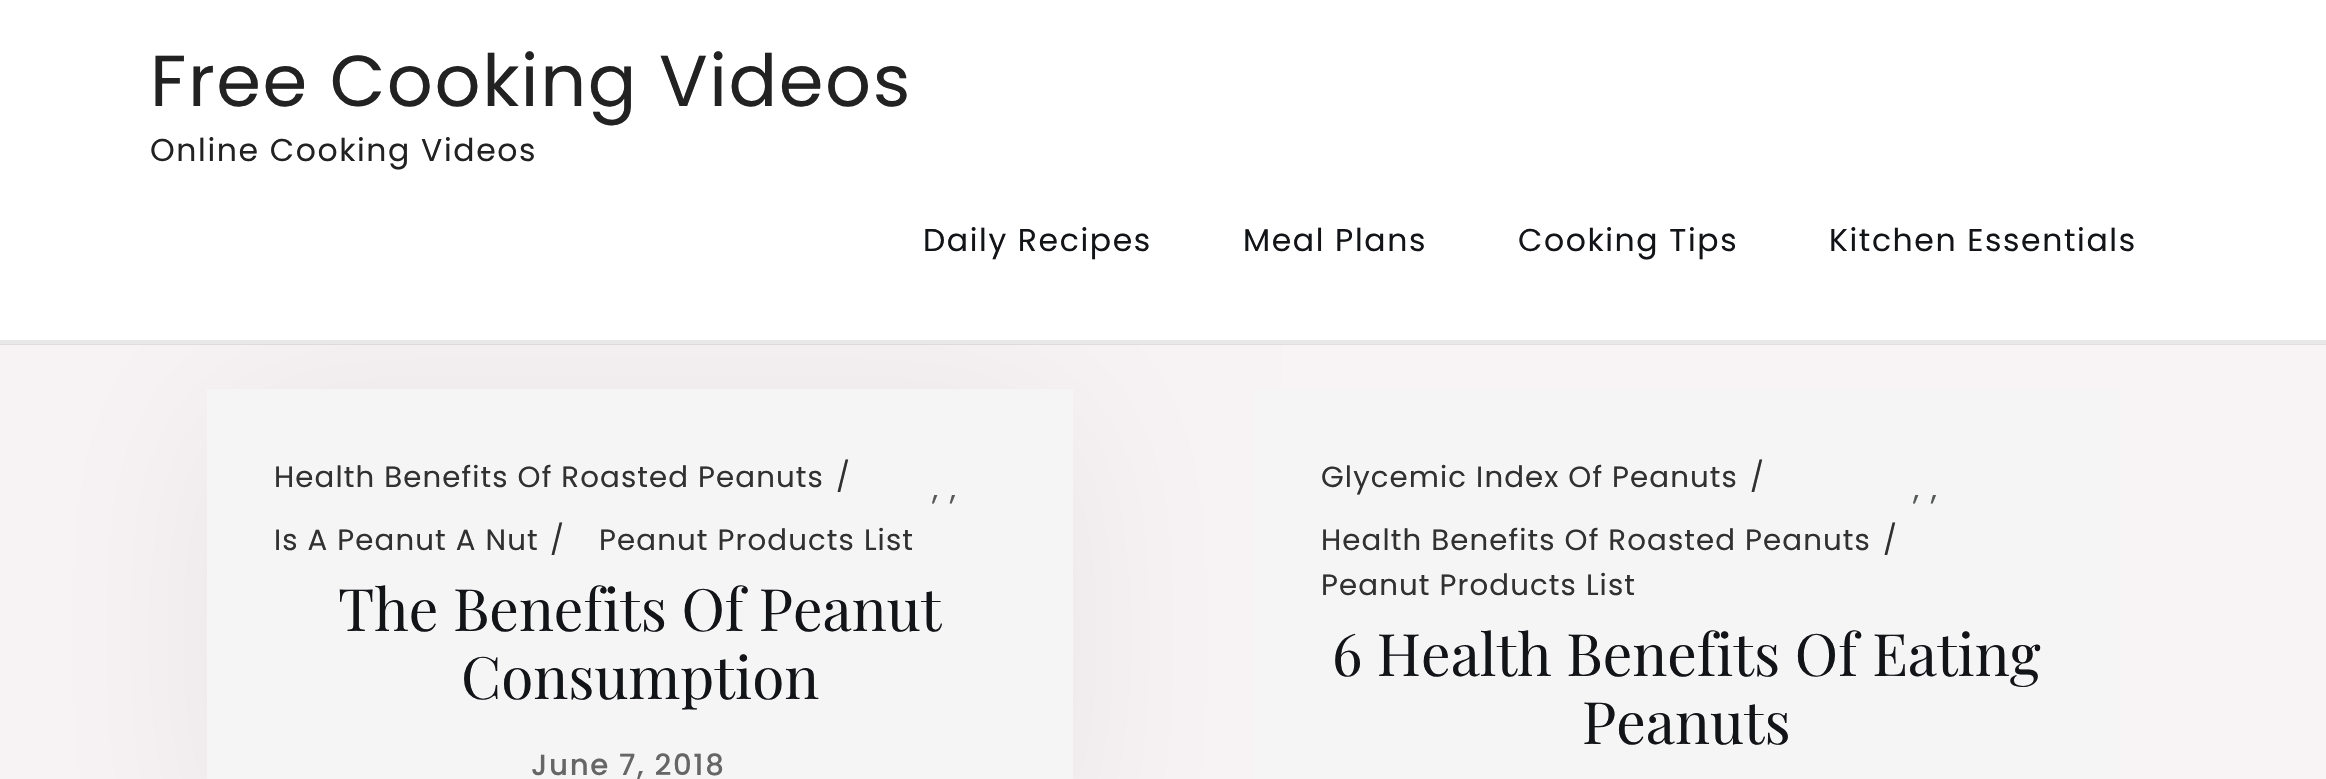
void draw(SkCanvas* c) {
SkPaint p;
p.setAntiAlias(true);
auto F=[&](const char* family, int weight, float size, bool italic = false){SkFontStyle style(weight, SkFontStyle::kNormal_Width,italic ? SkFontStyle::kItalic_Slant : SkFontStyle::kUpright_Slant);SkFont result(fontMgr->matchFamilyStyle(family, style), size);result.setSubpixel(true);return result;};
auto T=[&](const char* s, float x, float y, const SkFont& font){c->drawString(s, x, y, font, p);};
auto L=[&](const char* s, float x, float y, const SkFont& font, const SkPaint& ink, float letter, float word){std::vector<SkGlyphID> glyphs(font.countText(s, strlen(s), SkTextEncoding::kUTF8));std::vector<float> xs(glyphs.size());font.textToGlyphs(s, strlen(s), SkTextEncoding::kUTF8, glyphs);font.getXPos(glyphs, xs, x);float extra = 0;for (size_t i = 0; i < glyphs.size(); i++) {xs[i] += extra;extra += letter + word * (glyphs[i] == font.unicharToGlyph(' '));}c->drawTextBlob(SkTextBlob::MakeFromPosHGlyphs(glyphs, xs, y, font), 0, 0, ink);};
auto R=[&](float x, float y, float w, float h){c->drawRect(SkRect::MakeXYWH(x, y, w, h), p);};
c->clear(0xfff8f3f4);
p.setColor(0x0f000000);
p.setMaskFilter(SkMaskFilter::MakeBlur(kNormal_SkBlurStyle, 94.5));
c->drawRoundRect(SkRect::MakeXYWH(207,398,866,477),18,18,p);
p.setMaskFilter(nullptr);
p.setColor(0xffffffff);
R(0,0,2326,344);
p.setColor(0x1a222222);
R(0,340,2326,5);
auto f1 = F("Poppins",400,72);
p.setColor(0xff222222);
L("Free Cooking Videos",150,106,f1,p,1.6,0);
auto f2 = F("Poppins",400,31.5);
L("Online Cooking Videos",150,161,f2,p,1.6,0);
p.setColor(0xff121418);
L("Daily Recipes",923,251,f2,p,1.6,0);
L("Meal Plans",1243,251,f2,p,1.6,0);
L("Cooking Tips",1518,251,f2,p,1.6,0);
L("Kitchen Essentials",1829,251,f2,p,1.6,0);
p.setColor(0xfff5f5f5);
R(207,389,866,390);
auto f3 = F("Poppins",400,29.25);
p.setColor(0xff313131);
L("Health Benefits Of Roasted Peanuts",274,487,f3,p,1.1,0);
L("/",836,487,f3,p,1.1,0);
p.setColor(0xff565859);
L(", ,",932,499,f2,p,1.6,0);
p.setColor(0xff313131);
L("Is A Peanut A Nut",274,550,f3,p,1.1,0);
L("/",550,550,f3,p,1.1,0);
L("Peanut Products List",599,550,f3,p,1.1,0);
auto f4 = F("Playfair Display",400,58.5);
p.setColor(0xff121418);
T("The Benefits Of Peanut",338,631,f4);
T("Consumption",461,699,f4);
auto f5 = F("Poppins",500,29.25);
p.setColor(0xff666666);
L("June 7, 2018",531,775,f5,p,1.6,0);
p.setColor(0xf5f5f5f5);
R(1253,389,867,390);
p.setColor(0xff313131);
L("Glycemic Index Of Peanuts",1321,487,f3,p,1.1,0);
L("/",1750,487,f3,p,1.1,0);
p.setColor(0xff565859);
L(", ,",1913,499,f2,p,1.6,0);
p.setColor(0xff313131);
L("Health Benefits Of Roasted Peanuts",1321,550,f3,p,1.1,0);
L("/",1883,550,f3,p,1.1,0);
L("Peanut Products List",1321,595,f3,p,1.1,0);
p.setColor(0xff121418);
T("6 Health Benefits Of Eating",1332,676,f4);
T("Peanuts",1582,744,f4);
}
